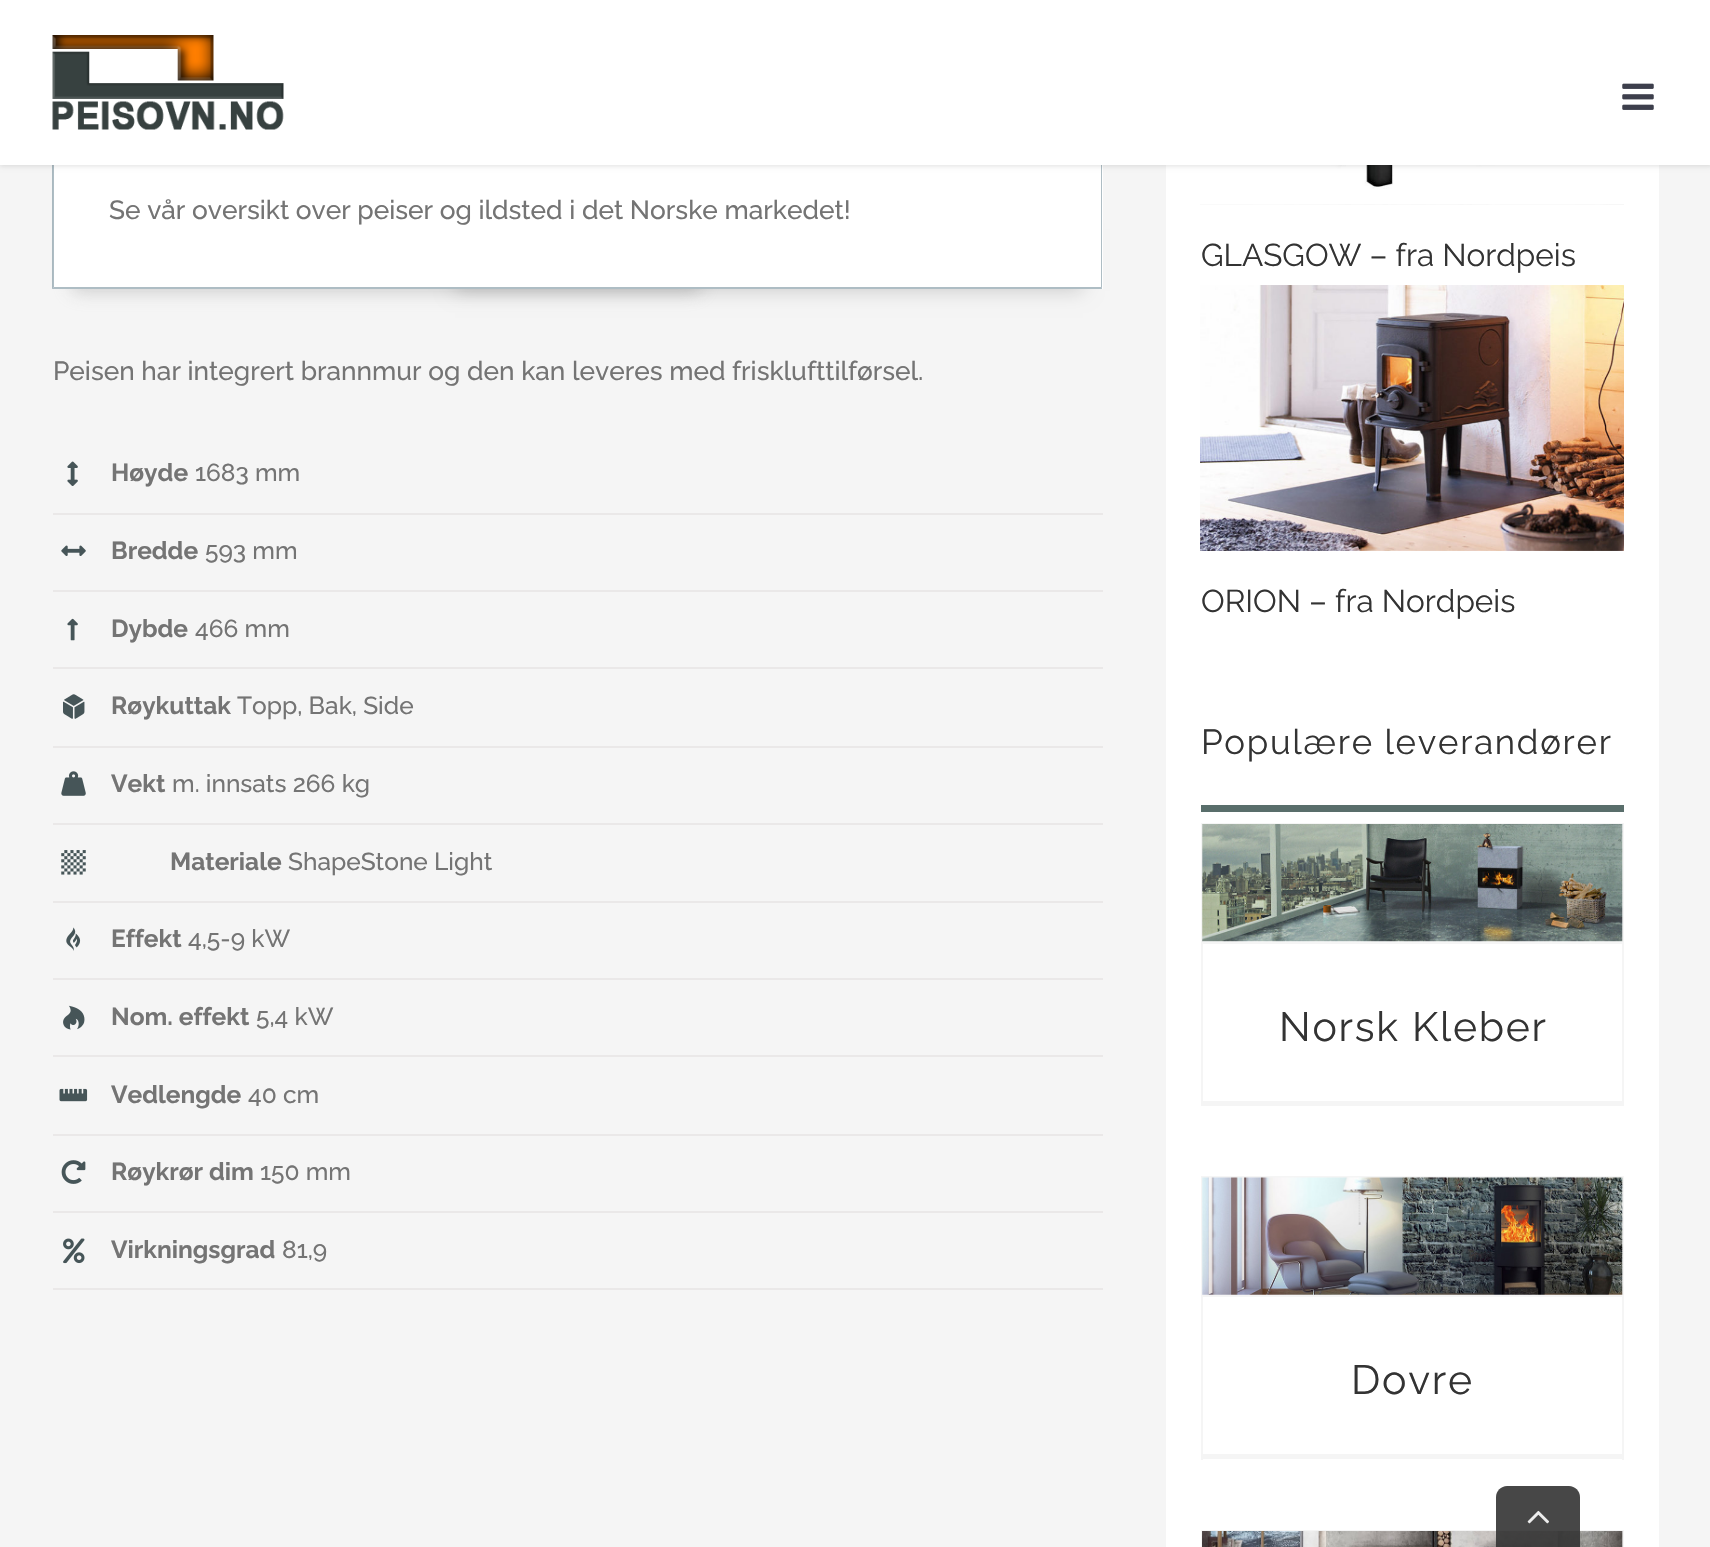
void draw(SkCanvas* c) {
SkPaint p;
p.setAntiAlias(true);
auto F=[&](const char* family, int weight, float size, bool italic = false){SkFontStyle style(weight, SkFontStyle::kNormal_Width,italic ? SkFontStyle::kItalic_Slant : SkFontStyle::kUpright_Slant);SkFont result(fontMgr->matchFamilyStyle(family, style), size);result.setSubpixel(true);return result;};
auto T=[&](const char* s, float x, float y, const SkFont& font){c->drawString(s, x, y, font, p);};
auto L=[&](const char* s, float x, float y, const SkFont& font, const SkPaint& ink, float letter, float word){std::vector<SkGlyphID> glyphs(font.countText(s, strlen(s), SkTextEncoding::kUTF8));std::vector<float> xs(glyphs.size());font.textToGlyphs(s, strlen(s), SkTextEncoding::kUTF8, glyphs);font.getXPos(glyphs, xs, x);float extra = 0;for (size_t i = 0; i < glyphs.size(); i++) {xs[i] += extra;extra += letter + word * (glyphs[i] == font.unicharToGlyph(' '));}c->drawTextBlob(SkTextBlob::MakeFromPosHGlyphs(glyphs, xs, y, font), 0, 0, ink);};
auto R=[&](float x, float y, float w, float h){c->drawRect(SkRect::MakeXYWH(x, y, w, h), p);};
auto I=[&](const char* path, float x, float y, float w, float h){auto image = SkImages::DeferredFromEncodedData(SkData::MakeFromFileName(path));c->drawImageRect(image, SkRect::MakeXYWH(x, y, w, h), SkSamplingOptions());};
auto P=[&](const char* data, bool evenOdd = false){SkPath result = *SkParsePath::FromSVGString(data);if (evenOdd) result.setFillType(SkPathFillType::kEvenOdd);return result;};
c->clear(0xfff5f5f5);
p.setColor(0xb3b8b8b8);
p.setMaskFilter(SkMaskFilter::MakeBlur(kNormal_SkBlurStyle, 9));
c->drawRect(SkRect::MakeXYWH(72,229,628,62),p);
p.setMaskFilter(nullptr);
p.setColor(0x2b000000);
p.setMaskFilter(SkMaskFilter::MakeBlur(kNormal_SkBlurStyle, 9));
c->drawRect(SkRect::MakeXYWH(455,229,628,62),p);
p.setMaskFilter(nullptr);
p.setColor(0xffffffff);
R(53,165,1050,124);
p.setColor(0xffaebdc4);
c->drawPath(P("M1102-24v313l-1-2v-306z"),p);
p.setColor(0x82607d8b);
c->drawPath(P("M1102 289h-1050l2-2h1047z"),p);
c->drawPath(P("M52 289v-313l2 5v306z"),p);
p.setColor(0xffffffff);
R(1166,165,493,1382);
I("14.png",1200,165,424,40);
p.setColor(0x1f000000);
p.setMaskFilter(SkMaskFilter::MakeBlur(kNormal_SkBlurStyle, 2.5));
c->drawRect(SkRect::MakeXYWH(0,2,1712,164),p);
p.setMaskFilter(nullptr);
p.setColor(0xffffffff);
R(0,0,1710,165);
I("1.png",52,35,232,95);
I("2.png",1622,83,32,27);
auto f1 = F("Raleway",500,26.25);
p.setColor(0xff747474);
T("Se vår oversikt over peiser og ildsted i det Norske markedet!",109,219,f1);
T("Peisen har integrert brannmur og den kan leveres med frisklufttilførsel.",53,380,f1);
p.setColor(0xffeae8e8);
R(53,513,1050,2);
I("3.png",67,461,11,25);
auto f2 = F("Raleway",700,24.5);
p.setColor(0xff747474);
T("Høyde",111,481,f2);
auto f3 = F("Raleway",500,24.5);
T("1683 mm",195,481,f3);
p.setColor(0xffeae8e8);
R(53,590,1050,2);
I("4.png",61,545,25,11);
p.setColor(0xff747474);
T("Bredde",111,559,f2);
T("593 mm",205,559,f3);
p.setColor(0xffeae8e8);
R(53,667,1050,2);
I("5.png",67,618,11,23);
p.setColor(0xff747474);
T("Dybde",111,637,f2);
T("466 mm",195,637,f3);
p.setColor(0xffeae8e8);
R(53,746,1050,2);
I("6.png",63,694,22,25);
p.setColor(0xff747474);
T("Røykuttak",111,714,f2);
T("Topp, Bak, Side",237,714,f3);
p.setColor(0xffeae8e8);
R(53,823,1050,2);
I("7.png",61,771,25,25);
p.setColor(0xff747474);
T("Vekt",111,792,f2);
T("m. innsats 266 kg",172,792,f3);
p.setColor(0xffeae8e8);
R(53,901,1050,2);
I("8.png",61,850,25,25);
p.setColor(0xff747474);
T("Materiale",170,870,f2);
T("ShapeStone Light",288,870,f3);
p.setColor(0xffeae8e8);
R(53,978,1050,2);
I("9.png",66,927,15,24);
p.setColor(0xff747474);
T("Effekt",111,947,f2);
T("4,5-9 kW",188,947,f3);
p.setColor(0xffeae8e8);
R(53,1055,1050,2);
I("10.png",63,1005,22,25);
p.setColor(0xff747474);
T("Nom. effekt",111,1025,f2);
T("5,4 kW",256,1025,f3);
p.setColor(0xffeae8e8);
R(53,1134,1050,2);
I("11.png",59,1088,29,14);
p.setColor(0xff747474);
T("Vedlengde",111,1103,f2);
T("40 cm",248,1103,f3);
p.setColor(0xffeae8e8);
R(53,1211,1050,2);
I("12.png",61,1160,25,24);
p.setColor(0xff747474);
T("Røykrør dim",111,1180,f2);
T("150 mm",260,1180,f3);
p.setColor(0xffeae8e8);
R(53,1288,1050,2);
I("13.png",63,1238,22,26);
p.setColor(0xff747474);
T("Virkningsgrad",111,1258,f2);
T("81,9",282,1258,f3);
auto f4 = F("Raleway",400,31.5);
p.setColor(0xff333333);
T("GLASGOW – fra Nordpeis",1201,266,f4);
I("15.png",1200,285,424,266);
T("ORION – fra Nordpeis",1201,612,f4);
auto f5 = F("Raleway",400,34.75);
L("Populære leverandører",1201,754,f5,p,1.75,0);
p.setColor(0xff596e6b);
R(1201,805,423,7);
p.setColor(0xfff5f5f5);
R(1201,823,423,1);
R(1622,823,2,283);
R(1201,1101,423,5);
R(1201,823,2,283);
R(1202,942,420,2);
I("16.png",1202,824,421,118);
auto f6 = F("Raleway",400,41);
p.setColor(0xff333333);
L("Norsk Kleber",1279,1041,f6,p,1.75,0);
p.setColor(0xfff5f5f5);
R(1201,1176,423,2);
R(1622,1176,2,284);
R(1201,1454,423,5);
R(1201,1176,2,284);
R(1202,1295,420,2);
I("17.png",1202,1177,421,118);
p.setColor(0xff333333);
L("Dovre",1351,1394,f6,p,1.75,0);
p.setColor(0xfff5f5f5);
R(1201,1530,423,1);
R(1622,1530,2,17);
R(1201,1530,2,17);
I("18.png",1202,1531,421,16);
p.setColor(0xe6333333);
c->drawPath(P("M1507 1486h62c6 0 11 5 11 11v50h-84v-50c0-6 5-11 11-11z"),p);
I("19.png",1527,1510,22,14);
}
